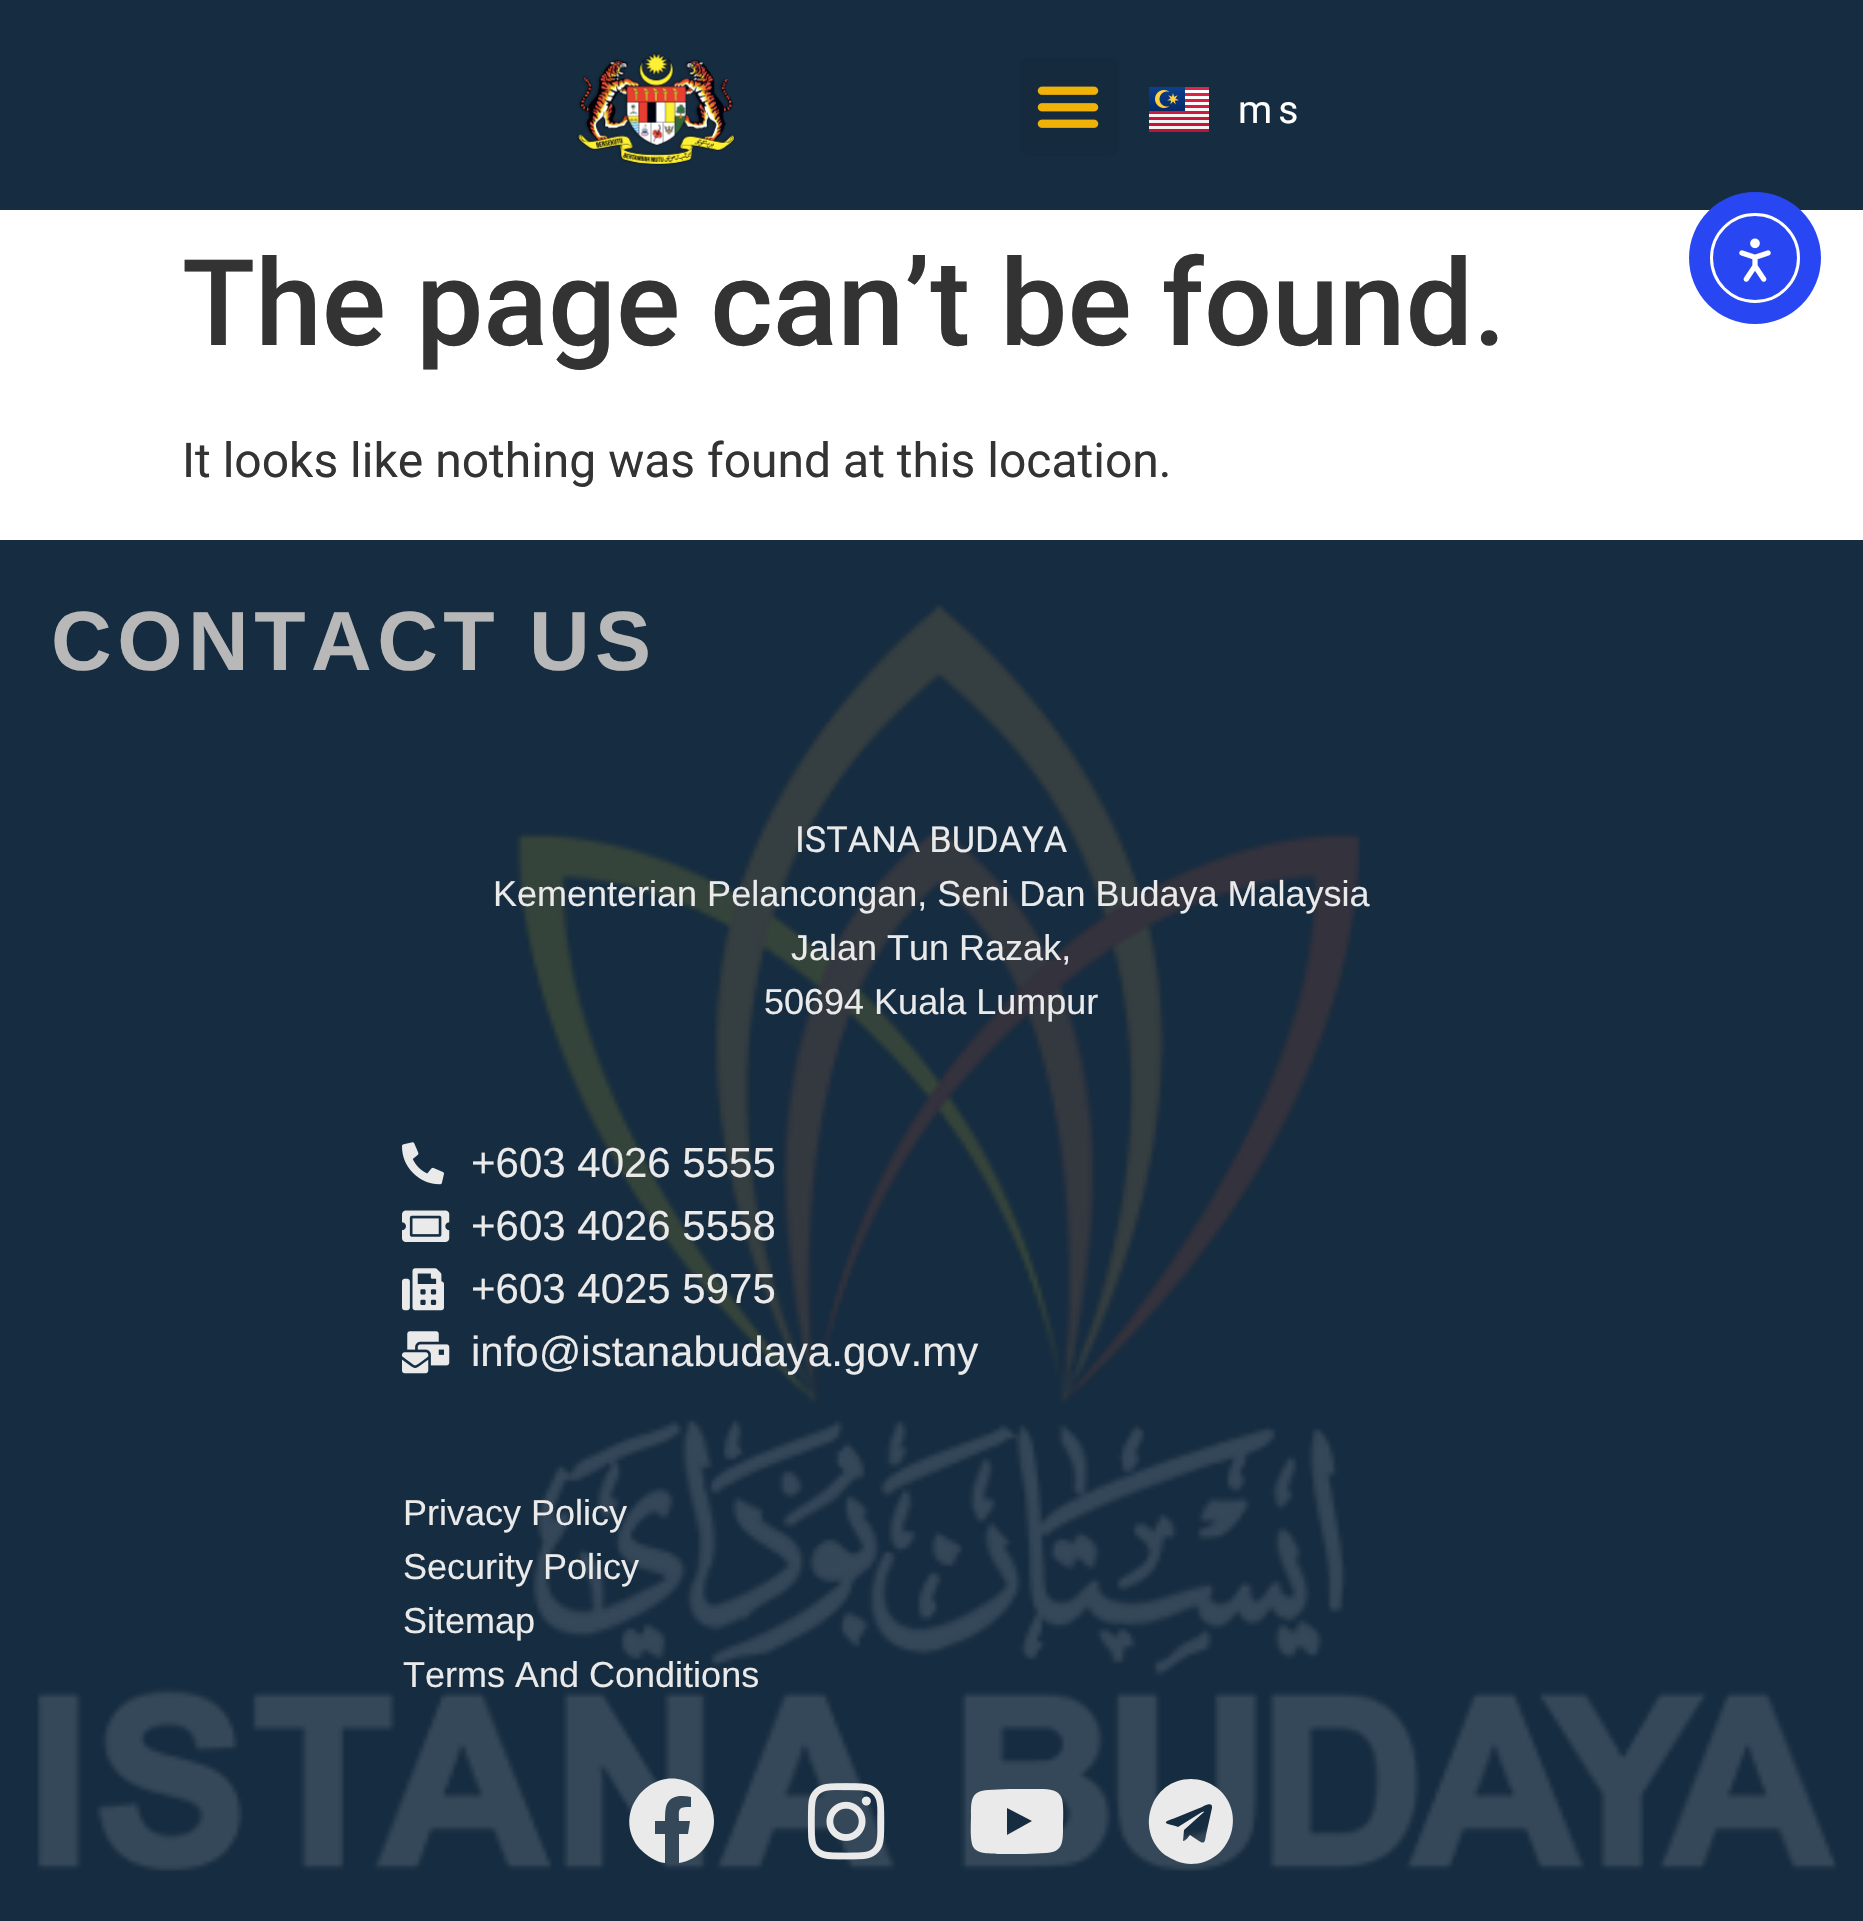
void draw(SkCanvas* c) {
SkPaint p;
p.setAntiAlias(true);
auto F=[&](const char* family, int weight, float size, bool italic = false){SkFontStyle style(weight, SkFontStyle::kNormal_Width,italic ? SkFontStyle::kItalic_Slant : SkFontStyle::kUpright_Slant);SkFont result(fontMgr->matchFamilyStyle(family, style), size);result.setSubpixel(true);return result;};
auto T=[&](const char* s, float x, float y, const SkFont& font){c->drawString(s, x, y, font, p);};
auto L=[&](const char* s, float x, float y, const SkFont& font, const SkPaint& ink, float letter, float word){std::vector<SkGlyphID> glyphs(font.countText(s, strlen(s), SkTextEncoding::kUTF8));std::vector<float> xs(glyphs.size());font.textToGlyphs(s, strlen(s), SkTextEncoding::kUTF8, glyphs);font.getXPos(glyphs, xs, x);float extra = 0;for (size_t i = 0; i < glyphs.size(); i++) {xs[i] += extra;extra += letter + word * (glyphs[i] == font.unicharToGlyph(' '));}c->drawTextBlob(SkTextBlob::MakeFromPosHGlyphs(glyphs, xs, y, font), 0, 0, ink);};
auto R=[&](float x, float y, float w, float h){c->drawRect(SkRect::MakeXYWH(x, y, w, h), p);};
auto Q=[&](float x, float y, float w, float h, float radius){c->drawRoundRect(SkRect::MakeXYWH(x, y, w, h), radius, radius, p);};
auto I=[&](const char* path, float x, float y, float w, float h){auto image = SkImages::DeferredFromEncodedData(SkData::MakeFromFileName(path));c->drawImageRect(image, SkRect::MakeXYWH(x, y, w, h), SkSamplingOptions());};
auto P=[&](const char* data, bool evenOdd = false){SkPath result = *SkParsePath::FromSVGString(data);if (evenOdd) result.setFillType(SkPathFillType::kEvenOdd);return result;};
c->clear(0xffffffff);
p.setColor(0xff162c40);
R(0,0,1863,210);
I("1.png",576,52,159,114);
p.setColor(0xff152a3d);
Q(1020,57,99,99,9);
I("2.png",1037,86,62,42);
I("3.png",1149,87,60,45);
auto f1 = F("Roboto",400,39);
p.setColor(0xffffffff);
L("ms",1238,123,f1,p,6,0);
auto f2 = F("Roboto",500,120);
p.setColor(0xff333333);
T("The page can’t be found.",182,345,f2);
auto f3 = F("Roboto",400,48);
T("It looks like nothing was found at this location.",182,477,f3);
p.setColor(0xff2847f3);
c->drawCircle(1755,258,66,p);
p.setStroke(true);
p.setStrokeWidth(3);
p.setColor(0xffffffff);
c->drawCircle(1755,258,43.5,p);
I("4.png",1739,238,32,44);
p.setStroke(false);
p.setColor(0xff162c40);
R(0,540,1863,1381);
I("5.png",37,604,1800,1267);
auto f4 = F("Liberation Sans",700,84);
p.setColor(0xffb8b8b8);
L("CONTACT US",51,670,f4,p,5.5,0);
auto f5 = F("Roboto",400,36);
p.setColor(0xffeaeaea);
T("ISTANA BUDAYA",795,852,f5);
auto f6 = F("Liberation Sans",400,36);
T("Kementerian Pelancongan, Seni Dan Budaya Malaysia",493,906,f6);
T("Jalan Tun Razak,",791,960,f6);
T("50694 Kuala Lumpur",764,1014,f6);
I("6.png",402,1142,42,43);
auto f7 = F("Liberation Sans",400,42);
T("+603 4026 5555",471,1177,f7);
I("7.png",402,1210,48,32);
T("+603 4026 5558",471,1240,f7);
I("8.png",402,1268,42,43);
T("+603 4025 5975",471,1303,f7);
I("9.png",402,1331,48,43);
T("info@istanabudaya.gov.my",471,1366,f7);
T("Privacy Policy",403,1525,f6);
T("Security Policy",403,1579,f6);
T("Sitemap",403,1633,f6);
T("Terms And Conditions",403,1687,f6);
c->drawPath(P("M714 1821c0 21-15 39-35 42v-29h9l2-13h-11c0-12-2-14 12-14v-10c-10-2-22-2-25 10c-1 4-1 10-1 14h-10v13h10v29c-9-1-18-7-25-14c-32-37 15-90 55-63c12 8 19 21 19 35z"),p);
I("10.png",807,1783,78,77);
c->drawPath(P("M1062 1799c2 9 1 20 1 29c0 16-1 24-17 25l-21 1h-27c-9-1-23 1-26-10c-2-9-1-20-1-30c0-15 1-23 17-24l21-1h27c9 0 23-1 26 10zm-55 36l25-14l-25-13z"),p);
c->drawPath(P("M1191 1779c9 0 18 3 26 9c31 24 14 76-26 76c-9 0-18-4-26-9c-31-25-14-76 26-76zm21 29c1-7-8-2-10-1l-27 11c-5 2-10 3-9 5c1 1 10 3 12 4l24-15c1 0 3-1 2 0l-20 18l-1 11c3 0 6-5 7-6l9 6c6 4 6 0 7-6z"),p);
}
